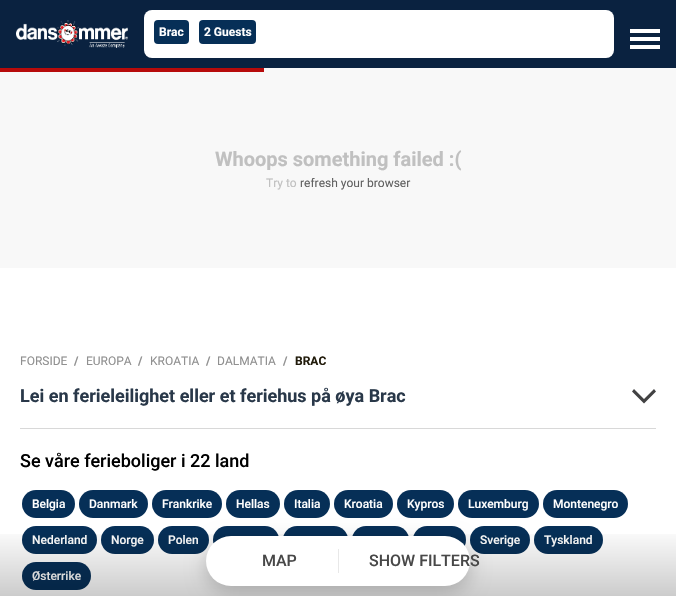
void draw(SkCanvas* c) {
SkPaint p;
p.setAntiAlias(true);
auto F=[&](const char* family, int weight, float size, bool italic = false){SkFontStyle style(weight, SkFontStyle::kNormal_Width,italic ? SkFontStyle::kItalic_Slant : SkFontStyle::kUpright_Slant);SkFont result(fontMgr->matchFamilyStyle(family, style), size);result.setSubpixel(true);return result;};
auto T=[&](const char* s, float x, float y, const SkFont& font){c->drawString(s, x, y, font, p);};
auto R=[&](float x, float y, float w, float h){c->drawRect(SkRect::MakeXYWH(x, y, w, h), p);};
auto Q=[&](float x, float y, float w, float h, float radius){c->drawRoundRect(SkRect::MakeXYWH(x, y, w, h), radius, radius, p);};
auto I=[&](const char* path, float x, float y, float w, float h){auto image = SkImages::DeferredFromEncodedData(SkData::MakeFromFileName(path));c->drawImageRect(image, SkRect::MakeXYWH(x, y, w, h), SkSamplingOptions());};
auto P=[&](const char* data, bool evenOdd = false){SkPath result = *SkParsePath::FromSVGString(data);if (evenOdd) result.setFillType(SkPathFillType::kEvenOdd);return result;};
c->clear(0xffffffff);
p.setColor(0xff0a2240);
R(0,0,676,68);
I("1.png",16,20,112,28);
p.setColor(0xffffffff);
Q(144,10,470,48,8);
p.setColor(0xff062f57);
Q(154,20,35,24,4);
auto f1 = F("Roboto",700,12);
p.setColor(0xffffffff);
T("Brac",159,36,f1);
p.setColor(0xff062f57);
Q(199,20,57,24,4);
p.setColor(0xffffffff);
T("2 Guests",204,36,f1);
R(630,37,30,4);
R(630,29,30,4);
R(630,45,30,4);
p.setColor(0xfff8f8f8);
R(0,68,676,200);
p.setColor(0xffb70b0b);
R(0,68,264,4);
auto f2 = F("Roboto",700,20);
p.setColor(0xffc0c0c0);
T("Whoops something failed :(",215,166,f2);
auto f3 = F("Roboto",400,12);
T("Try to",266,187,f3);
p.setColor(0xff606060);
T("refresh your browser",300,187,f3);
p.setColor(0xffd8d8d8);
R(20,428,636,1);
p.setColor(0xff909090);
T("FORSIDE",20,365,f3);
T("/",74,365,f1);
T("EUROPA",86,365,f3);
T("/",138,365,f1);
T("KROATIA",150,365,f3);
T("/",206,365,f1);
T("DALMATIA",217,365,f3);
T("/",283,365,f1);
p.setColor(0xff221c0c);
T("BRAC",295,365,f1);
auto f4 = F("Roboto",700,18);
p.setColor(0xff293849);
T("Lei en ferieleilighet eller et feriehus på øya Brac",20,402,f4);
p.setColor(0xff424243);
c->drawPath(P("M634 389l-2 2.5l12 12l12-12l-2-2.5l-10 10z"),p);
auto f5 = F("Roboto",500,18);
p.setColor(0xff000000);
T("Se våre ferieboliger i 22 land",20,467,f5);
p.setColor(0xff062f57);
Q(22,490,53,28,14);
auto f6 = F("Roboto",500,12);
p.setColor(0xffffffff);
T("Belgia",32,508,f6);
p.setColor(0xff062f57);
Q(79,490,69,28,14);
p.setColor(0xffffffff);
T("Danmark",89,508,f6);
p.setColor(0xff062f57);
Q(152,490,70,28,14);
p.setColor(0xffffffff);
T("Frankrike",162,508,f6);
p.setColor(0xff062f57);
Q(226,490,54,28,14);
p.setColor(0xffffffff);
T("Hellas",236,508,f6);
p.setColor(0xff062f57);
Q(284,490,46,28,14);
p.setColor(0xffffffff);
T("Italia",294,508,f6);
p.setColor(0xff062f57);
Q(334,490,59,28,14);
p.setColor(0xffffffff);
T("Kroatia",344,508,f6);
p.setColor(0xff062f57);
Q(397,490,57,28,14);
p.setColor(0xffffffff);
T("Kypros",407,508,f6);
p.setColor(0xff062f57);
Q(458,490,81,28,14);
p.setColor(0xffffffff);
T("Luxemburg",468,508,f6);
p.setColor(0xff062f57);
Q(543,490,85,28,14);
p.setColor(0xffffffff);
T("Montenegro",553,508,f6);
p.setColor(0xff062f57);
Q(22,526,75,28,14);
p.setColor(0xffffffff);
T("Nederland",32,544,f6);
p.setColor(0xff062f57);
Q(101,526,53,28,14);
p.setColor(0xffffffff);
T("Norge",111,544,f6);
p.setColor(0xff062f57);
Q(158,526,51,28,14);
p.setColor(0xffffffff);
T("Polen",168,544,f6);
p.setColor(0xff062f57);
Q(213,526,66,28,14);
Q(283,526,65,28,14);
Q(352,526,57,28,14);
Q(413,526,53,28,14);
Q(470,526,60,28,14);
p.setColor(0xffffffff);
T("Sverige",480,544,f6);
p.setColor(0xff062f57);
Q(534,526,69,28,14);
p.setColor(0xffffffff);
T("Tyskland",544,544,f6);
p.setColor(0xff062f57);
Q(22,562,69,28,14);
p.setColor(0xffffffff);
T("Østerrike",32,580,f6);
{
const SkColor colors[] = {0x00000000,0x33000000};
const float stops[] = {0,1};
const SkPoint ends[] = {{338,526}, {338,596}};
p.setShader(SkGradientShader::MakeLinear(ends, colors, stops, 2, SkTileMode::kClamp));
p.setAlpha(255);
}
R(0,534,676,62);
p.setShader(nullptr);
p.setColor(0x33000000);
p.setMaskFilter(SkMaskFilter::MakeBlur(kNormal_SkBlurStyle, 10));
c->drawRoundRect(SkRect::MakeXYWH(206,542,264,50),25,25,p);
p.setMaskFilter(nullptr);
p.setColor(0xffffffff);
Q(206,536,264,50,25);
auto f7 = F("Roboto",500,16);
p.setColor(0xff484848);
T("MAP",262,566,f7);
p.setColor(0xffe8e8e8);
R(338,549,1,24);
p.setColor(0xff484848);
T("SHOW FILTERS",369,566,f7);
}
